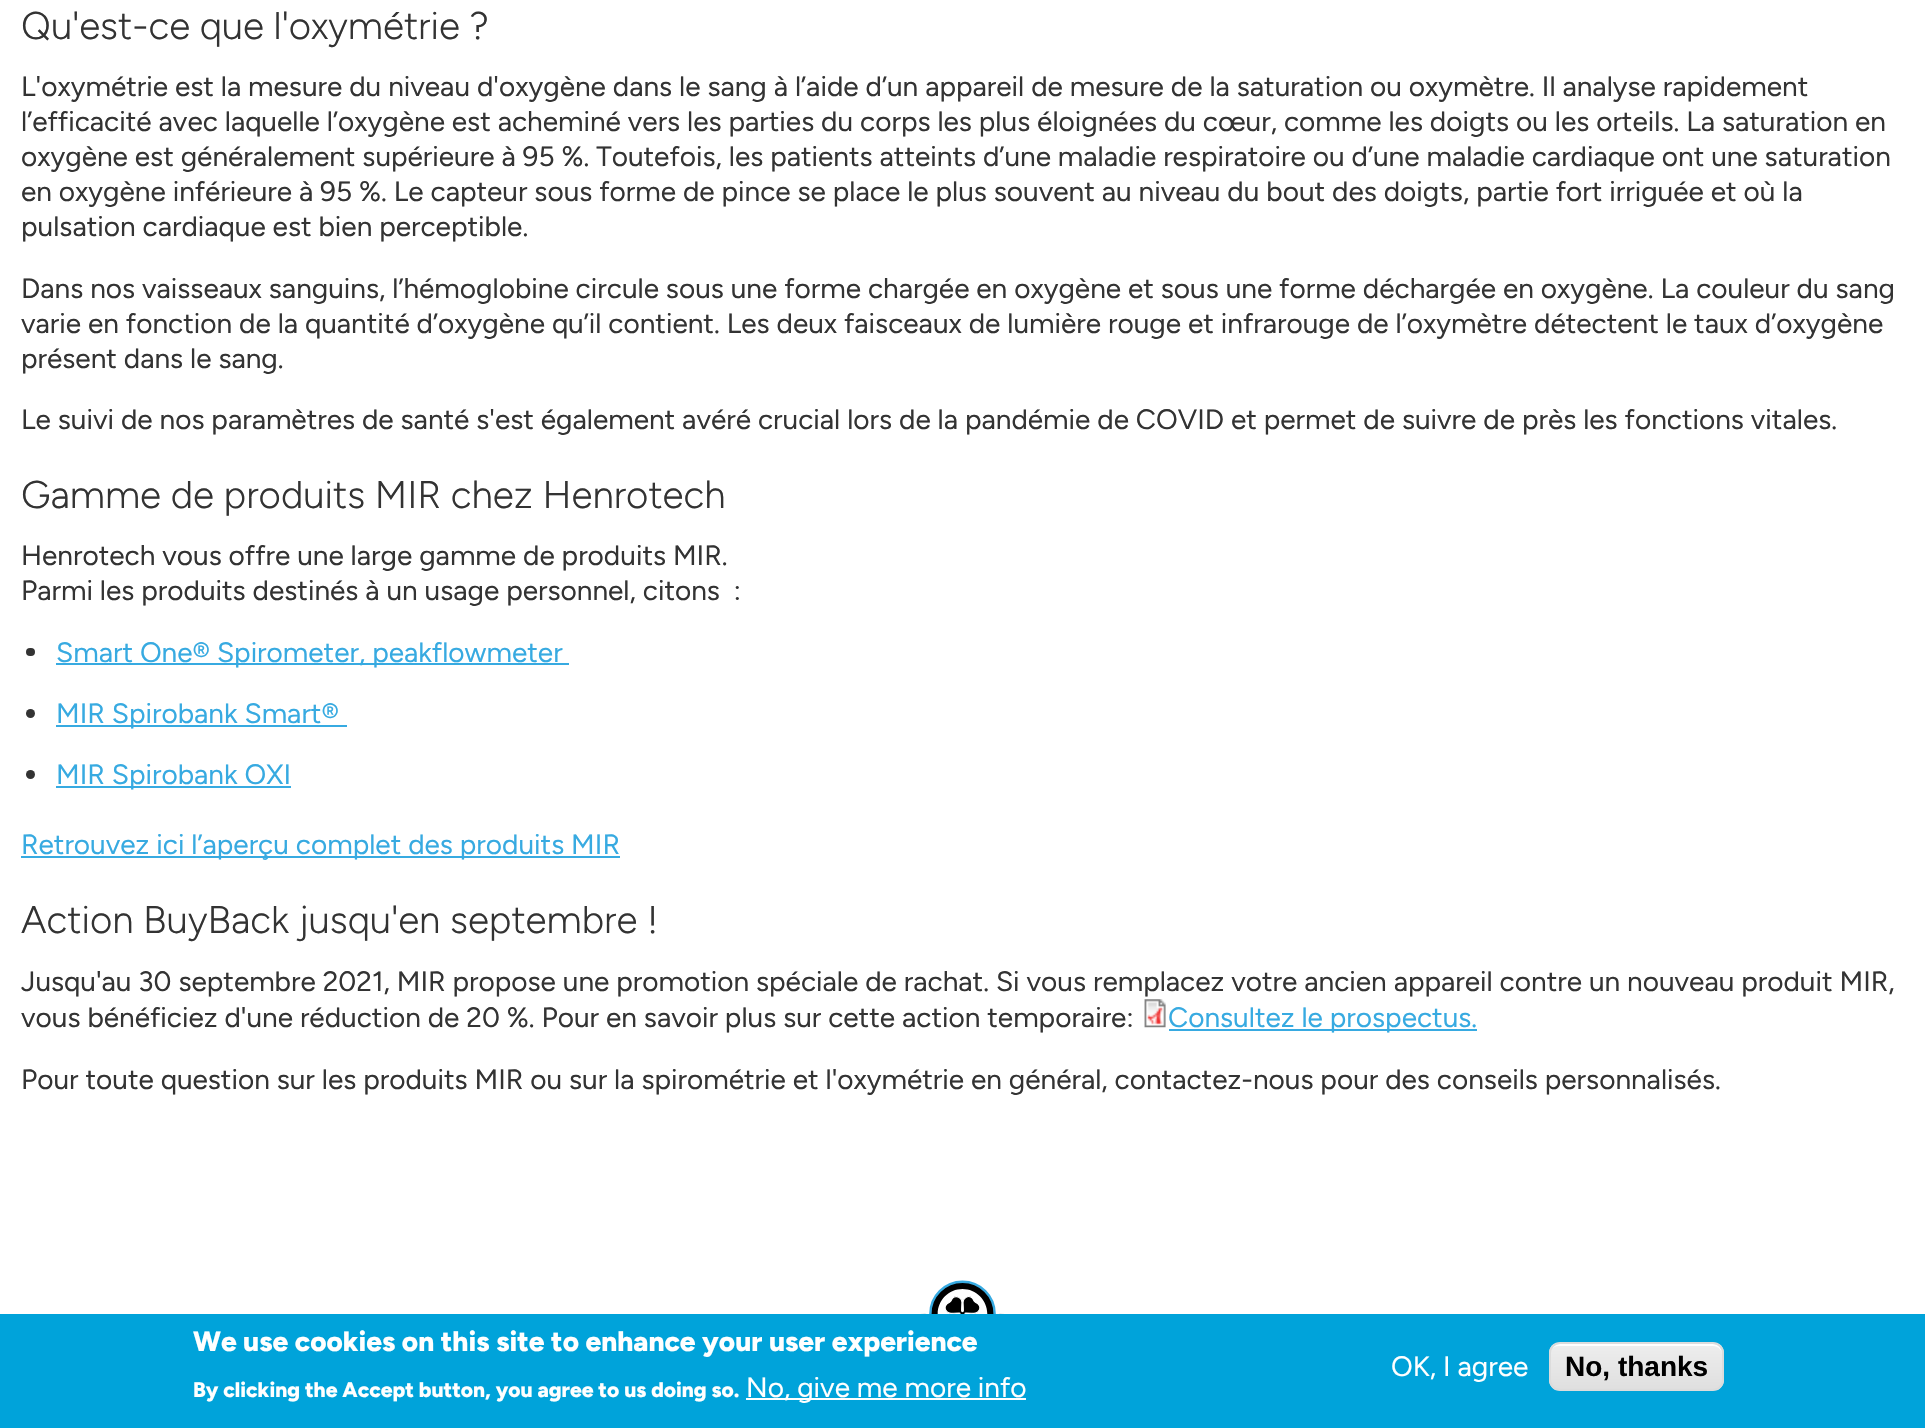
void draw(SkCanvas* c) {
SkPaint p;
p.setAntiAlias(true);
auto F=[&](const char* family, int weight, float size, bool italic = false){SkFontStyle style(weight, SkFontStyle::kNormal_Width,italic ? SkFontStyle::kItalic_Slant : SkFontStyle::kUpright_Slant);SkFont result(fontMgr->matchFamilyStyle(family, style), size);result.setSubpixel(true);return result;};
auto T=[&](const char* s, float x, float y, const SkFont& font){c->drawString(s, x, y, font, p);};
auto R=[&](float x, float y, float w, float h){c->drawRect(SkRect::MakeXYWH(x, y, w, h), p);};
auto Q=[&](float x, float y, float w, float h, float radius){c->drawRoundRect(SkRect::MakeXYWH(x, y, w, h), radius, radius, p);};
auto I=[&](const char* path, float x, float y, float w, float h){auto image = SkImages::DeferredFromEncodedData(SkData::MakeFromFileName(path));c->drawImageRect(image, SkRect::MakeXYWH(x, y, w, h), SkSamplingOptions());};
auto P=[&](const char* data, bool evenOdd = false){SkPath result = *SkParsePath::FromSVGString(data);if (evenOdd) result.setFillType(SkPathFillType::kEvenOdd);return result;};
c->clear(0xffffffff);
auto f1 = F("Figtree",300,38.5);
p.setColor(0xff333333);
T("Qu'est-ce que l'oxymétrie ?",21,39,f1);
auto f2 = F("Figtree",400,28);
T("L'oxymétrie est la mesure du niveau d'oxygène dans le sang à l’aide d’un appareil de mesure de la saturation ou oxymètre. Il analyse rapidement",21,96,f2);
T("l’efficacité avec laquelle l’oxygène est acheminé vers les parties du corps les plus éloignées du cœur, comme les doigts ou les orteils. La saturation en",21,131,f2);
T("oxygène est généralement supérieure à 95 %. Toutefois, les patients atteints d’une maladie respiratoire ou d’une maladie cardiaque ont une saturation",21,166,f2);
T("en oxygène inférieure à 95 %. Le capteur sous forme de pince se place le plus souvent au niveau du bout des doigts, partie fort irriguée et où la",21,201,f2);
T("pulsation cardiaque est bien perceptible.",21,236,f2);
T("Dans nos vaisseaux sanguins, l’hémoglobine circule sous une forme chargée en oxygène et sous une forme déchargée en oxygène. La couleur du sang",21,298,f2);
T("varie en fonction de la quantité d’oxygène qu’il contient. Les deux faisceaux de lumière rouge et infrarouge de l’oxymètre détectent le taux d’oxygène",21,333,f2);
T("présent dans le sang.",21,368,f2);
T("Le suivi de nos paramètres de santé s'est également avéré crucial lors de la pandémie de COVID et permet de suivre de près les fonctions vitales.",21,429,f2);
T("Gamme de produits MIR chez Henrotech",21,508,f1);
T("Henrotech vous offre une large gamme de produits MIR.",21,565,f2);
T("Parmi les produits destinés à un usage personnel, citons  :",21,600,f2);
Q(26,648,9,8,4);
p.setColor(0xff37aae1);
R(56,663,513,2);
T("Smart One® Spirometer, peakflowmeter",56,662,f2);
p.setColor(0xff333333);
c->drawCircle(30.5,713.5,4.5,p);
p.setColor(0xff37aae1);
R(56,725,291,2);
T("MIR Spirobank Smart®",56,723,f2);
p.setColor(0xff333333);
c->drawCircle(30.5,774.5,4.5,p);
p.setColor(0xff37aae1);
R(56,786,235,2);
T("MIR Spirobank OXI",56,784,f2);
R(21,856,599,2);
T("Retrouvez ici l’aperçu complet des produits MIR",21,854,f2);
p.setColor(0xff333333);
T("Action BuyBack jusqu'en septembre !",21,933,f1);
T("Jusqu'au 30 septembre 2021, MIR propose une promotion spéciale de rachat. Si vous remplacez votre ancien appareil contre un nouveau produit MIR,",21,991,f2);
T("vous bénéficiez d'une réduction de 20 %. Pour en savoir plus sur cette action temporaire:",21,1027,f2);
I("1.png",1144,999,22,29);
p.setColor(0xff37aae1);
R(1169,1029,308,2);
T("Consultez le prospectus.",1168,1027,f2);
p.setColor(0xff333333);
T("Pour toute question sur les produits MIR ou sur la spirométrie et l'oxymétrie en général, contactez-nous pour des conseils personnalisés.",21,1089,f2);
I("2.png",921,1280,83,34);
p.setColor(0xff00a3da);
R(0,1314,1925,114);
auto f3 = F("Figtree",800,28);
p.setColor(0xffffffff);
T("We use cookies on this site to enhance your user experience",193,1351,f3);
auto f4 = F("Figtree",800,21);
T("By clicking the Accept button, you agree to us doing so.",193,1397,f4);
R(746,1398,280,2);
T("No, give me more info",746,1397,f2);
T("OK, I agree",1391,1376,f2);
c->save();
c->clipPath(P("M1560 1342h153c6 0 11 5 11 11v27c0 6-5 11-11 11h-153c-6 0-11-5-11-11v-27c0-6 5-11 11-11z"),true);
{
const SkColor colors[] = {0xffededed,0xffdfdfdf};
const float stops[] = {.05,1};
const SkPoint ends[] = {{1636,1344}, {1636,1390}};
p.setShader(SkGradientShader::MakeLinear(ends, colors, stops, 2, SkTileMode::kClamp));
p.setAlpha(255);
}
R(1549,1344,175,46);
c->restore();
p.setShader(nullptr);
p.setColor(0xffffffff);
c->drawPath(P("M1559 1346h154c5 0 9 4 9 8v-1c0-5-4-9-9-9h-153c-4 0-7 2-8 5c1-2 4-3 7-3z"),p);
p.setStroke(true);
p.setStrokeWidth(2);
p.setColor(0xffdcdcdc);
c->drawRoundRect(SkRect::MakeXYWH(1550,1343,173,47),10,10,p);
auto f5 = F("Liberation Sans",700,28);
p.setStroke(false);
p.setColor(0xff000000);
T("No, thanks",1565,1376,f5);
}
